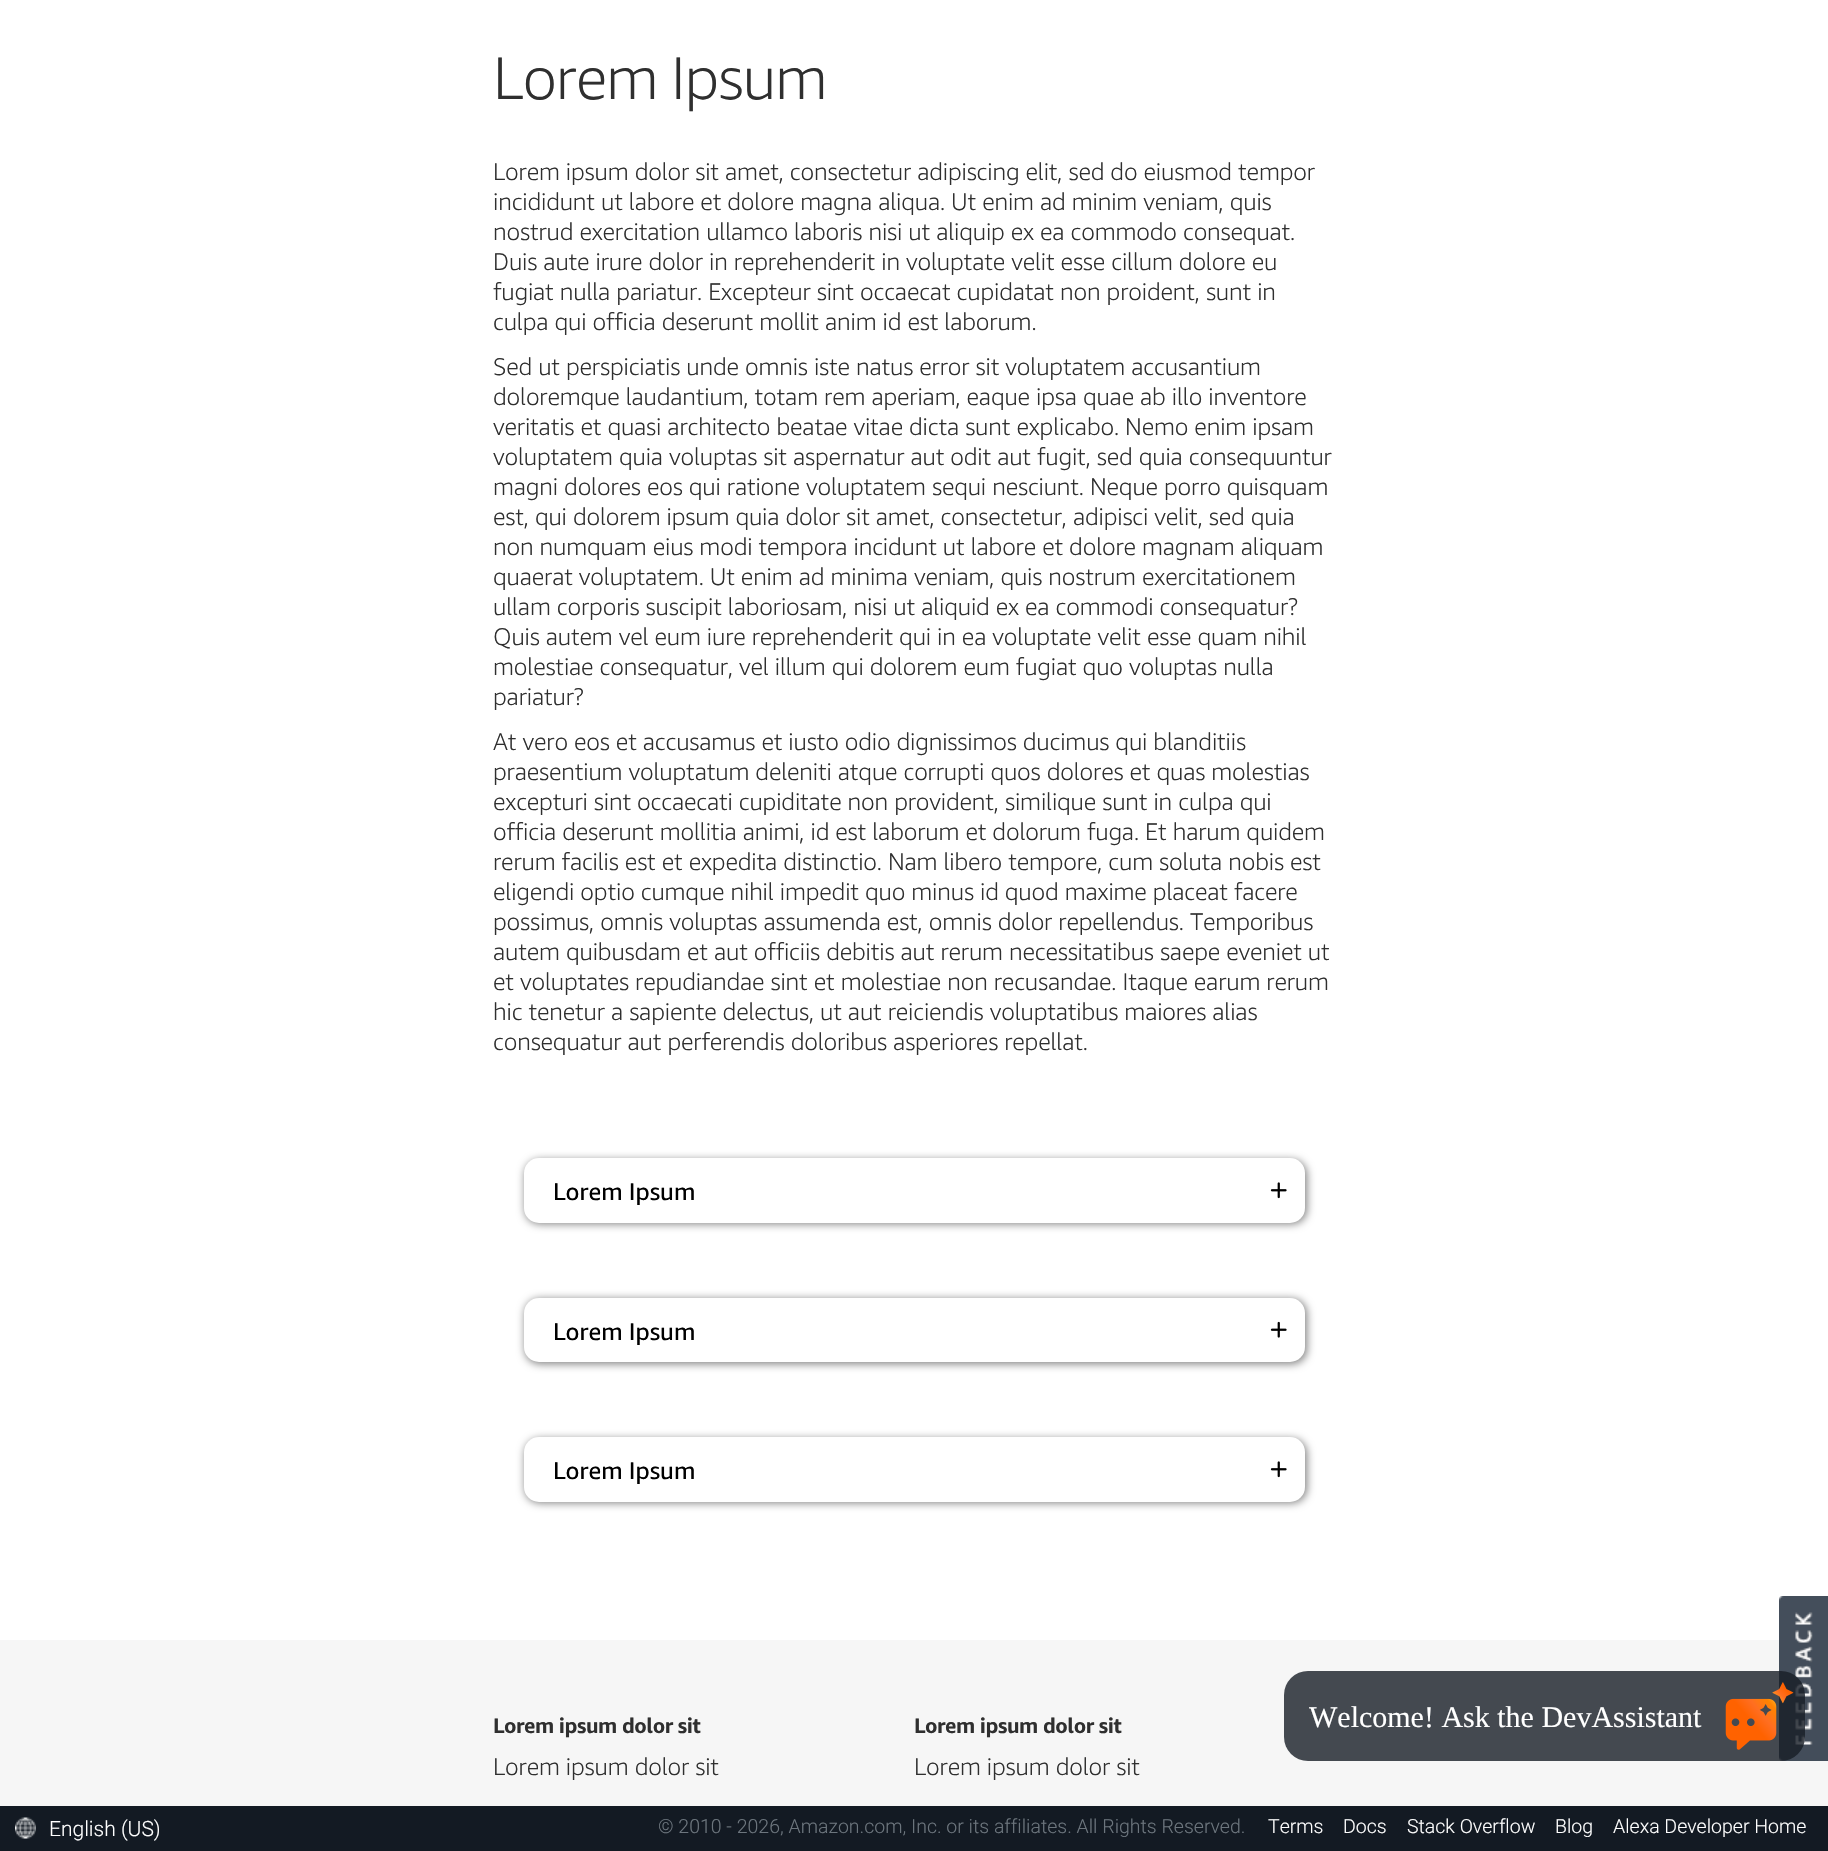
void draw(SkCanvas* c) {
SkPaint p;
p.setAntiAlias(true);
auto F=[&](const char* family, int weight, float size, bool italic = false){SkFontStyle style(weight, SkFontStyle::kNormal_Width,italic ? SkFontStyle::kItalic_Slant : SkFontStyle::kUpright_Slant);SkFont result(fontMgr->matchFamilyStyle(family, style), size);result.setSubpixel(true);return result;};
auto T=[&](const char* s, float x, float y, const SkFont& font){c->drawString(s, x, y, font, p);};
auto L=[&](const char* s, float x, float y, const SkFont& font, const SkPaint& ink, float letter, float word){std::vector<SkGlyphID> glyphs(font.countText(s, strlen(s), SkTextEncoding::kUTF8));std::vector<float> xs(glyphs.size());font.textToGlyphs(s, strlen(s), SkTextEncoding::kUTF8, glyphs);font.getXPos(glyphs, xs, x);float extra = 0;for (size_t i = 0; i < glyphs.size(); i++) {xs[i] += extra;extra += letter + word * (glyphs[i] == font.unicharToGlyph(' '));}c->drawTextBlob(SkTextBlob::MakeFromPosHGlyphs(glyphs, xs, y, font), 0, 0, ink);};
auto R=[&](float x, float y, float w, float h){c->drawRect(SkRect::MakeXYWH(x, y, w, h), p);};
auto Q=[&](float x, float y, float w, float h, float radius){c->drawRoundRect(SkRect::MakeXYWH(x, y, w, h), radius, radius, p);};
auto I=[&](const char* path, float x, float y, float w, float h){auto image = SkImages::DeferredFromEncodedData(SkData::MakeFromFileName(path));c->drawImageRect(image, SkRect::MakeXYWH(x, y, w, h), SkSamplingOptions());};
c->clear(0xffffffff);
auto f1 = F("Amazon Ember",300,60);
p.setColor(0xff2f2f2f);
L("Lorem Ipsum",493,99,f1,p,-.75,-2);
auto f2 = F("Amazon Ember",300,24);
L("Lorem ipsum dolor sit amet, consectetur adipiscing elit, sed do eiusmod tempor",493,180,f2,p,-.15,0);
L("incididunt ut labore et dolore magna aliqua. Ut enim ad minim veniam, quis",493,210,f2,p,-.15,0);
L("nostrud exercitation ullamco laboris nisi ut aliquip ex ea commodo consequat.",493,240,f2,p,-.15,0);
L("Duis aute irure dolor in reprehenderit in voluptate velit esse cillum dolore eu",493,270,f2,p,-.15,0);
L("fugiat nulla pariatur. Excepteur sint occaecat cupidatat non proident, sunt in",493,300,f2,p,-.15,0);
L("culpa qui officia deserunt mollit anim id est laborum.",493,330,f2,p,-.15,0);
L("Sed ut perspiciatis unde omnis iste natus error sit voluptatem accusantium",493,375,f2,p,-.15,0);
L("doloremque laudantium, totam rem aperiam, eaque ipsa quae ab illo inventore",493,405,f2,p,-.15,0);
L("veritatis et quasi architecto beatae vitae dicta sunt explicabo. Nemo enim ipsam",493,435,f2,p,-.15,0);
L("voluptatem quia voluptas sit aspernatur aut odit aut fugit, sed quia consequuntur",493,465,f2,p,-.15,0);
L("magni dolores eos qui ratione voluptatem sequi nesciunt. Neque porro quisquam",493,495,f2,p,-.15,0);
L("est, qui dolorem ipsum quia dolor sit amet, consectetur, adipisci velit, sed quia",493,525,f2,p,-.15,0);
L("non numquam eius modi tempora incidunt ut labore et dolore magnam aliquam",493,555,f2,p,-.15,0);
L("quaerat voluptatem. Ut enim ad minima veniam, quis nostrum exercitationem",493,585,f2,p,-.15,0);
L("ullam corporis suscipit laboriosam, nisi ut aliquid ex ea commodi consequatur?",493,615,f2,p,-.15,0);
L("Quis autem vel eum iure reprehenderit qui in ea voluptate velit esse quam nihil",493,645,f2,p,-.15,0);
L("molestiae consequatur, vel illum qui dolorem eum fugiat quo voluptas nulla",493,675,f2,p,-.15,0);
L("pariatur?",493,705,f2,p,-.15,0);
L("At vero eos et accusamus et iusto odio dignissimos ducimus qui blanditiis",493,750,f2,p,-.15,0);
L("praesentium voluptatum deleniti atque corrupti quos dolores et quas molestias",493,780,f2,p,-.15,0);
L("excepturi sint occaecati cupiditate non provident, similique sunt in culpa qui",493,810,f2,p,-.15,0);
L("officia deserunt mollitia animi, id est laborum et dolorum fuga. Et harum quidem",493,840,f2,p,-.15,0);
L("rerum facilis est et expedita distinctio. Nam libero tempore, cum soluta nobis est",493,870,f2,p,-.15,0);
L("eligendi optio cumque nihil impedit quo minus id quod maxime placeat facere",493,900,f2,p,-.15,0);
L("possimus, omnis voluptas assumenda est, omnis dolor repellendus. Temporibus",493,930,f2,p,-.15,0);
L("autem quibusdam et aut officiis debitis aut rerum necessitatibus saepe eveniet ut",493,960,f2,p,-.15,0);
L("et voluptates repudiandae sint et molestiae non recusandae. Itaque earum rerum",493,990,f2,p,-.15,0);
L("hic tenetur a sapiente delectus, ut aut reiciendis voluptatibus maiores alias",493,1020,f2,p,-.15,0);
L("consequatur aut perferendis doloribus asperiores repellat.",493,1050,f2,p,-.15,0);
p.setColor(0xff808080);
p.setMaskFilter(SkMaskFilter::MakeBlur(kNormal_SkBlurStyle, 4));
c->drawRoundRect(SkRect::MakeXYWH(525,1160,782,64),15,15,p);
p.setMaskFilter(nullptr);
p.setColor(0xffffffff);
Q(524,1158,781,65,15);
I("1.png",1270,1182,17,17);
auto f3 = F("Amazon Ember",400,24);
p.setColor(0xff000000);
T("Lorem Ipsum",553,1200,f3);
p.setColor(0xff808080);
p.setMaskFilter(SkMaskFilter::MakeBlur(kNormal_SkBlurStyle, 4));
c->drawRoundRect(SkRect::MakeXYWH(525,1299,782,65),15,15,p);
p.setMaskFilter(nullptr);
p.setColor(0xffffffff);
Q(524,1298,781,64,15);
I("2.png",1270,1321,17,17);
p.setColor(0xff000000);
T("Lorem Ipsum",553,1340,f3);
p.setColor(0xff808080);
p.setMaskFilter(SkMaskFilter::MakeBlur(kNormal_SkBlurStyle, 4));
c->drawRoundRect(SkRect::MakeXYWH(525,1439,782,64),15,15,p);
p.setMaskFilter(nullptr);
p.setColor(0xffffffff);
Q(524,1437,781,65,15);
I("1.png",1270,1461,17,17);
p.setColor(0xff000000);
T("Lorem Ipsum",553,1479,f3);
p.setColor(0xfff6f6f6);
R(0,1640,1828,166);
auto f4 = F("Amazon Ember",700,21);
p.setColor(0xff2f2f2f);
L("Lorem ipsum dolor sit",493,1733,f4,p,-.45,0);
L("Lorem ipsum dolor sit",493,1775,f2,p,-.15,0);
L("Lorem ipsum dolor sit",914,1733,f4,p,-.45,0);
L("Lorem ipsum dolor sit",914,1775,f2,p,-.15,0);
I("3.png",1779,1596,49,165);
p.setColor(0xff131a23);
R(0,1806,1828,45);
I("4.png",15,1817,21,22);
auto f5 = F("Roboto",300,21);
p.setColor(0xffffffff);
T("English (US)",49,1836,f5);
auto f6 = F("Roboto",300,19.5);
p.setColor(0xff6c757d);
T("© 2010 - 2026, Amazon.com, Inc. or its affiliates. All Rights Reserved.",658,1833,f6);
p.setColor(0xffffffff);
T("Terms",1268,1833,f6);
T("Docs",1343,1833,f6);
T("Stack Overflow",1407,1833,f6);
T("Blog",1555,1833,f6);
T("Alexa Developer Home",1613,1833,f6);
p.setColor(0xcc161d26);
Q(1284,1671,521,90,24);
auto f7 = F("Liberation Serif",400,30);
p.setColor(0xffffffff);
T("Welcome! Ask the DevAssistant",1309,1727,f7);
I("5.png",1725,1682,69,68);
}
